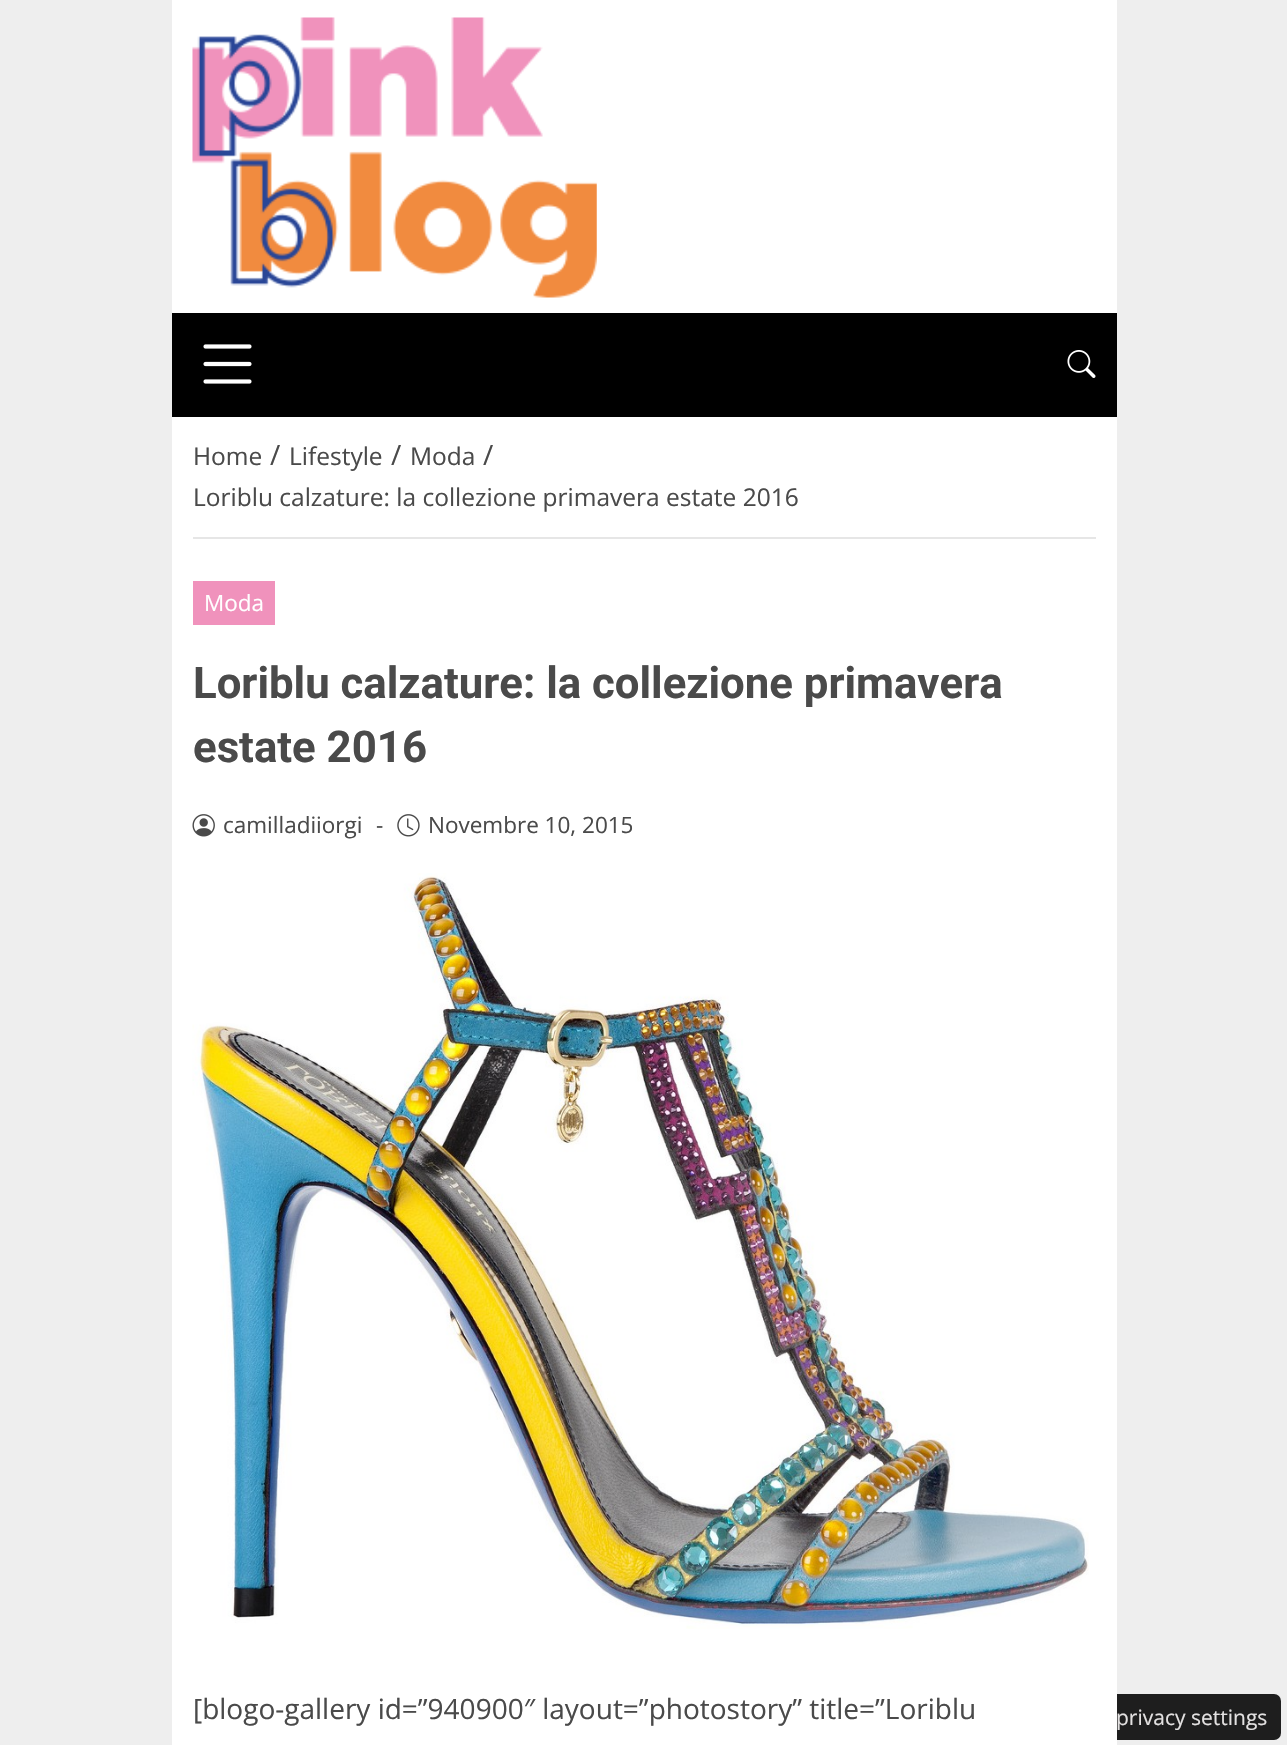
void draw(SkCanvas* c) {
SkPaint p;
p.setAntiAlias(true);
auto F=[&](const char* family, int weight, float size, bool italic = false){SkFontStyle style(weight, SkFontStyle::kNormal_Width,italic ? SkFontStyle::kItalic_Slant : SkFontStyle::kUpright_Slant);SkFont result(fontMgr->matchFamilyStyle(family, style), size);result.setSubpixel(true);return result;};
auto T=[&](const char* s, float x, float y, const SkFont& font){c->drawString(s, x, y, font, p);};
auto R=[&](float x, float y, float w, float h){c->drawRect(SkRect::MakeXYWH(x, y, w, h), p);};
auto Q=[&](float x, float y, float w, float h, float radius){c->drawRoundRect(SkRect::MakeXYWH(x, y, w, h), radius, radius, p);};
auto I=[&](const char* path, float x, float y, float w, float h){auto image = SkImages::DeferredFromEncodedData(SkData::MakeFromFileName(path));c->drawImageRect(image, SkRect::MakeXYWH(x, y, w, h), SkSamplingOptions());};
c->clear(0xffeeeeee);
p.setColor(0xffffffff);
R(172,0,945,313);
I("1.png",192,17,405,281);
p.setColor(0xff000000);
R(172,313,945,104);
I("2.png",203,344,49,40);
I("3.png",1067,350,29,28);
p.setColor(0xff1e1e1e);
Q(1022,1694,259,46,7);
p.setColor(0xffffffff);
R(172,417,945,1328);
p.setColor(0xffe6e6e6);
R(193,537,903,2);
auto f1 = F("Open Sans",400,24.5);
p.setColor(0xff4a4a4a);
T("Home",193,465,f1);
auto f2 = F("Open Sans",400,28);
T("/",270,465,f2);
T("Lifestyle",289,465,f1);
T("/",391,465,f2);
T("Moda",410,465,f1);
T("/",483,465,f2);
T("Loriblu calzature: la collezione primavera estate 2016",193,506,f1);
p.setColor(0xfff092bc);
R(193,581,82,44);
auto f3 = F("Open Sans",400,22.5);
p.setColor(0xffffffff);
T("Moda",204,611,f3);
auto f4 = F("Roboto",700,43.75);
p.setColor(0xff4a4a4a);
T("Loriblu calzature: la collezione primavera",193,698,f4);
T("estate 2016",193,762,f4);
I("4.png",192,814,23,23);
T("camilladiiorgi",223,833,f3);
T("-",376,833,f3);
I("5.png",397,814,23,23);
T("Novembre 10, 2015",428,833,f3);
I("6.png",192,873,897,756);
T("[blogo-gallery id=”940900″ layout=”photostory” title=”Loriblu",193,1719,f2);
auto f5 = F("Open Sans",400,21);
p.setColor(0xffe3e1e1);
T("privacy settings",1116,1725,f5);
}
